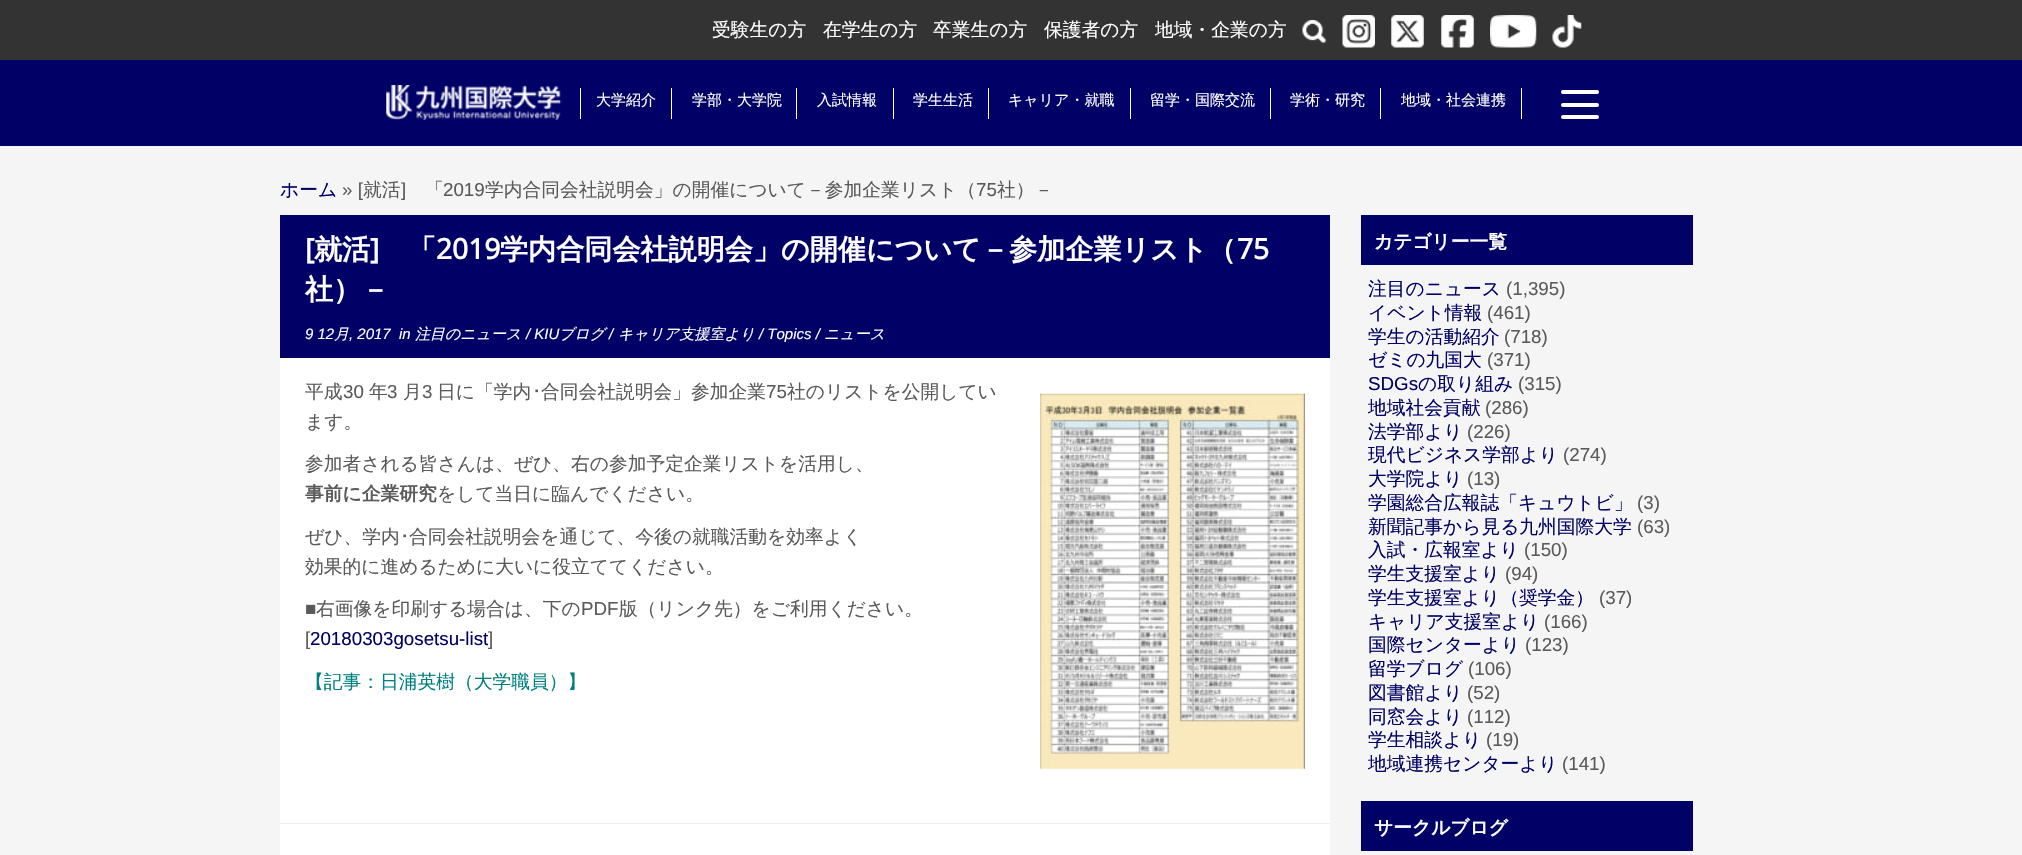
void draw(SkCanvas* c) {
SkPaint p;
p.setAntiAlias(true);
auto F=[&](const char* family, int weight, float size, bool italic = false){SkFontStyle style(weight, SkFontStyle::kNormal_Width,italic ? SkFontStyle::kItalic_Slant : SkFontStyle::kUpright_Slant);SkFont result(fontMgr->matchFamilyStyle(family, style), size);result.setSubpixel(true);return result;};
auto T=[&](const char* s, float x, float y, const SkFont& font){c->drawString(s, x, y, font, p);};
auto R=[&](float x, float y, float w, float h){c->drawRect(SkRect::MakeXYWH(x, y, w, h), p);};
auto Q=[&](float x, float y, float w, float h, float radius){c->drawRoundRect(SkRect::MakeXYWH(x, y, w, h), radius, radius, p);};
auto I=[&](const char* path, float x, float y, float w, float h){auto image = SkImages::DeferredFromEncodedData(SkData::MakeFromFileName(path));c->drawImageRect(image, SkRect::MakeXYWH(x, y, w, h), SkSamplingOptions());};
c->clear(0xfff5f5f5);
p.setColor(0xff333333);
R(0,0,2022,60);
auto f1 = F("WenQuanYi Zen Hei",500,18.75);
p.setColor(0xffffffff);
T("受験生の方",712,36,f1);
T("在学生の方",823,36,f1);
T("卒業生の方",933,36,f1);
T("保護者の方",1044,36,f1);
T("地域・企業の方",1155,36,f1);
I("1.png",1302,20,25,24);
I("2.png",1342,15,33,33);
I("3.png",1391,15,33,33);
I("4.png",1441,15,33,33);
I("5.png",1490,15,47,33);
I("6.png",1552,15,30,33);
p.setColor(0xff000066);
R(0,60,2022,86);
I("7.png",386,85,176,35);
p.setColor(0xffffffff);
R(671,88,1,31);
R(580,88,1,31);
auto f2 = F("WenQuanYi Zen Hei",500,15);
T("大学紹介",596,105,f2);
R(796,88,1,31);
T("学部・大学院",692,105,f2);
R(893,88,1,31);
T("入試情報",817,105,f2);
R(988,88,1,31);
T("学生生活",913,105,f2);
R(1130,88,1,31);
T("キャリア・就職",1008,105,f2);
R(1270,88,1,31);
T("留学・国際交流",1150,105,f2);
R(1380,88,1,31);
T("学術・研究",1290,105,f2);
R(1521,88,1,31);
T("地域・社会連携",1401,105,f2);
Q(1561,90,38,4,2);
Q(1561,103,38,4,2);
Q(1561,115,38,4,2);
p.setColor(0xff000066);
T("ホーム",280,196,f1);
auto f3 = F("Liberation Sans",400,18.75);
p.setColor(0xff5a5a5a);
T("» [",342,196,f3);
T("就活",363,196,f1);
T("]",401,196,f3);
T("「",425,196,f1);
T("2019",443,196,f3);
T("学内合同会社説明会」の開催について－参加企業リスト（",485,196,f1);
T("75",976,196,f3);
T("社）－",997,196,f1);
p.setColor(0xffffffff);
R(280,358,1050,497);
p.setColor(0xff000066);
R(280,215,1050,143);
auto f4 = F("Open Sans",700,28.1);
p.setColor(0xffffffff);
T("[",305,259,f4);
auto f5 = F("WenQuanYi Zen Hei",700,28.1);
T("就活",314,259,f5);
T("]",370,259,f4);
T("「",408,259,f5);
T("2019",436,259,f4);
T("学内合同会社説明会」の開催について－参加企業リスト（",500,259,f5);
T("75",1237,259,f4);
T("社）－",305,299,f5);
auto f6 = F("Liberation Sans",400,15,true);
T("9 12",305,339,f6);
auto f7 = F("WenQuanYi Zen Hei",500,15,true);
T("月",334,339,f7);
T(", 2017",349,339,f6);
T("in",399,339,f6);
T("注目のニュース",415,339,f7);
T("/ KIU",526,339,f6);
T("ブログ",559,339,f7);
T("/",609,339,f6);
T("キャリア支援室より",618,339,f7);
T("/ Topics /",759,339,f6);
T("ニュース",824,339,f7);
p.setColor(0xff5a5a5a);
T("平成",305,398,f1);
T("30",343,398,f3);
T("年",369,398,f1);
T("3",387,398,f3);
T("月",403,398,f1);
T("3",422,398,f3);
T("日に「学内",437,398,f1);
auto f8 = F("IPAPGothic",400,18.75);
T("･",532,398,f8);
T("合同会社説明会」参加企業",541,398,f1);
T("75",766,398,f3);
T("社のリストを公開してい",787,398,f1);
T("ます。",305,428,f1);
I("8.png",1040,393,265,376);
T("参加者される皆さんは、ぜひ、右の参加予定企業リストを活用し、",305,470,f1);
auto f9 = F("WenQuanYi Zen Hei",700,18.75);
T("事前に企業研究",305,500,f9);
T("をして当日に臨んでください。",437,500,f1);
T("ぜひ、学内",305,543,f1);
T("･",400,543,f8);
T("合同会社説明会を通じて、今後の就職活動を効率よく",409,543,f1);
T("効果的に進めるために大いに役立ててください。",305,573,f1);
T("■",305,615,f3);
T("右画像を印刷する場合は、下の",316,615,f1);
T("PDF",581,615,f3);
T("版（リンク先）をご利用ください。",619,615,f1);
T("[",305,645,f3);
p.setColor(0xff000066);
T("20180303gosetsu-list",310,645,f3);
p.setColor(0xff5a5a5a);
T("]",488,645,f3);
p.setColor(0xff008080);
T("【記事：日浦英樹（大学職員）】",305,688,f1);
p.setColor(0xffeeeeee);
R(280,823,1050,1);
p.setColor(0xff000066);
R(1361,215,332,50);
p.setColor(0xffffffff);
T("カテゴリー一覧",1374,248,f9);
p.setColor(0xff000066);
T("注目のニュース",1368,295,f1);
p.setColor(0xff5a5a5a);
T("(1,395)",1506,295,f3);
p.setColor(0xff000066);
T("イベント情報",1368,319,f1);
p.setColor(0xff5a5a5a);
T("(461)",1487,319,f3);
p.setColor(0xff000066);
T("学生の活動紹介",1368,343,f1);
p.setColor(0xff5a5a5a);
T("(718)",1504,343,f3);
p.setColor(0xff000066);
T("ゼミの九国大",1368,366,f1);
p.setColor(0xff5a5a5a);
T("(371)",1487,366,f3);
p.setColor(0xff000066);
T("SDGs",1368,390,f3);
T("の取り組み",1418,390,f1);
p.setColor(0xff5a5a5a);
T("(315)",1518,390,f3);
p.setColor(0xff000066);
T("地域社会貢献",1368,414,f1);
p.setColor(0xff5a5a5a);
T("(286)",1485,414,f3);
p.setColor(0xff000066);
T("法学部より",1368,438,f1);
p.setColor(0xff5a5a5a);
T("(226)",1467,438,f3);
p.setColor(0xff000066);
T("現代ビジネス学部より",1368,461,f1);
p.setColor(0xff5a5a5a);
T("(274)",1563,461,f3);
p.setColor(0xff000066);
T("大学院より",1368,485,f1);
p.setColor(0xff5a5a5a);
T("(13)",1467,485,f3);
p.setColor(0xff000066);
T("学園総合広報誌「キュウトビ」",1368,509,f1);
p.setColor(0xff5a5a5a);
T("(3)",1637,509,f3);
p.setColor(0xff000066);
T("新聞記事から見る九州国際大学",1368,533,f1);
p.setColor(0xff5a5a5a);
T("(63)",1637,533,f3);
p.setColor(0xff000066);
T("入試・広報室より",1368,556,f1);
p.setColor(0xff5a5a5a);
T("(150)",1524,556,f3);
p.setColor(0xff000066);
T("学生支援室より",1368,580,f1);
p.setColor(0xff5a5a5a);
T("(94)",1505,580,f3);
p.setColor(0xff000066);
T("学生支援室より（奨学金）",1368,604,f1);
p.setColor(0xff5a5a5a);
T("(37)",1599,604,f3);
p.setColor(0xff000066);
T("キャリア支援室より",1368,628,f1);
p.setColor(0xff5a5a5a);
T("(166)",1544,628,f3);
p.setColor(0xff000066);
T("国際センターより",1368,651,f1);
p.setColor(0xff5a5a5a);
T("(123)",1525,651,f3);
p.setColor(0xff000066);
T("留学ブログ",1368,675,f1);
p.setColor(0xff5a5a5a);
T("(106)",1468,675,f3);
p.setColor(0xff000066);
T("図書館より",1368,699,f1);
p.setColor(0xff5a5a5a);
T("(52)",1467,699,f3);
p.setColor(0xff000066);
T("同窓会より",1368,723,f1);
p.setColor(0xff5a5a5a);
T("(112)",1467,723,f3);
p.setColor(0xff000066);
T("学生相談より",1368,746,f1);
p.setColor(0xff5a5a5a);
T("(19)",1486,746,f3);
p.setColor(0xff000066);
T("地域連携センターより",1368,770,f1);
p.setColor(0xff5a5a5a);
T("(141)",1562,770,f3);
p.setColor(0xff000066);
R(1361,801,332,50);
p.setColor(0xffffffff);
T("サークルブログ",1374,834,f9);
}
